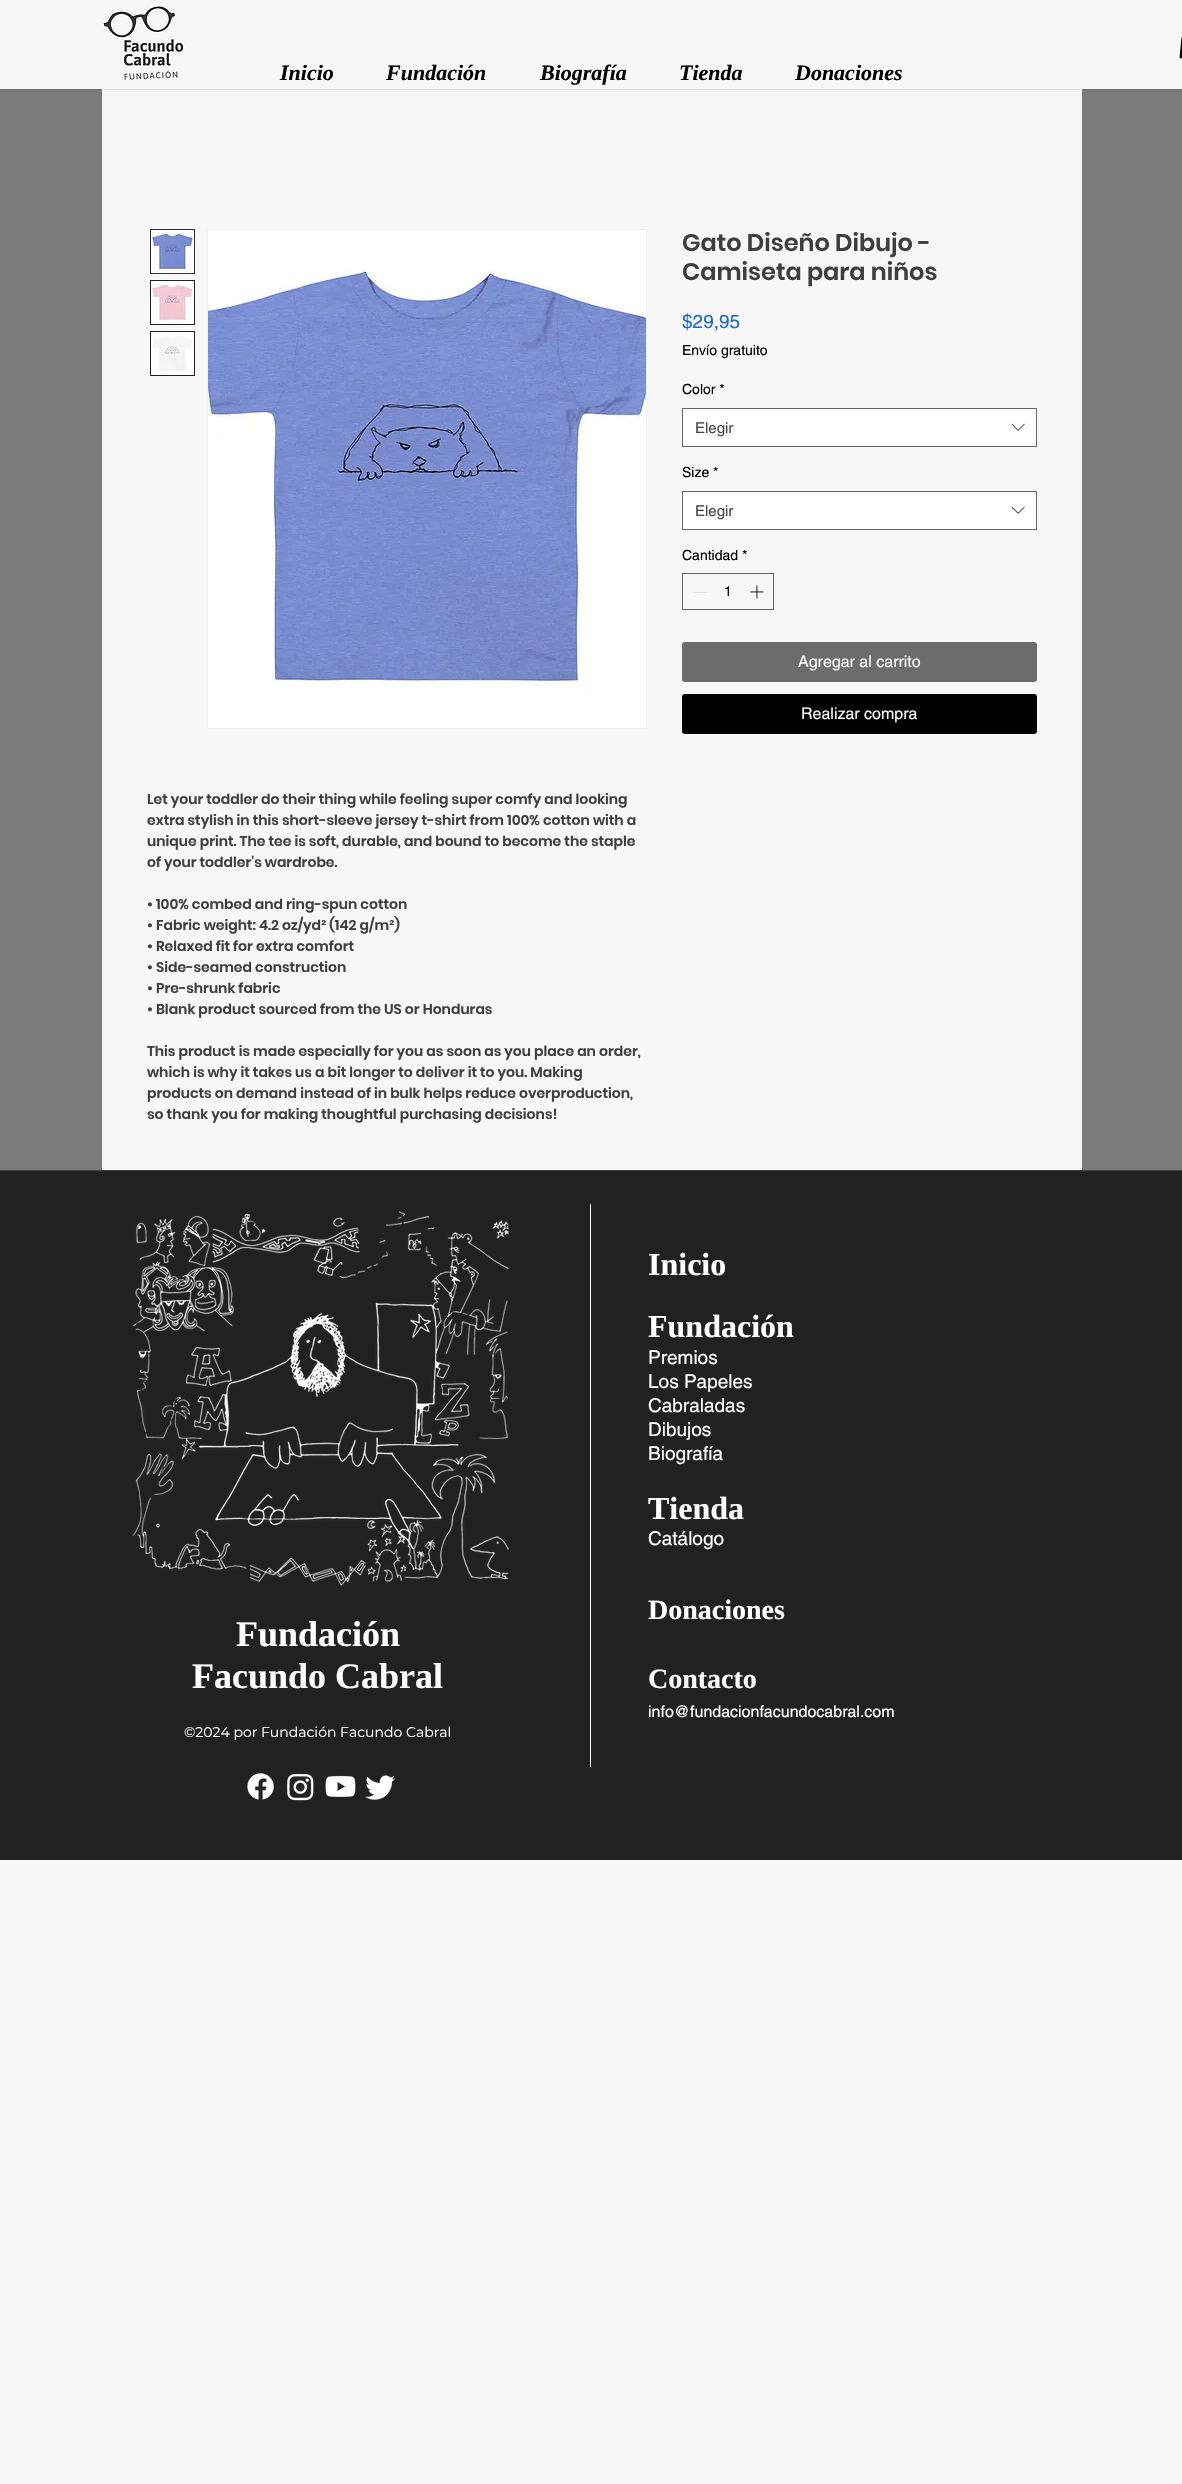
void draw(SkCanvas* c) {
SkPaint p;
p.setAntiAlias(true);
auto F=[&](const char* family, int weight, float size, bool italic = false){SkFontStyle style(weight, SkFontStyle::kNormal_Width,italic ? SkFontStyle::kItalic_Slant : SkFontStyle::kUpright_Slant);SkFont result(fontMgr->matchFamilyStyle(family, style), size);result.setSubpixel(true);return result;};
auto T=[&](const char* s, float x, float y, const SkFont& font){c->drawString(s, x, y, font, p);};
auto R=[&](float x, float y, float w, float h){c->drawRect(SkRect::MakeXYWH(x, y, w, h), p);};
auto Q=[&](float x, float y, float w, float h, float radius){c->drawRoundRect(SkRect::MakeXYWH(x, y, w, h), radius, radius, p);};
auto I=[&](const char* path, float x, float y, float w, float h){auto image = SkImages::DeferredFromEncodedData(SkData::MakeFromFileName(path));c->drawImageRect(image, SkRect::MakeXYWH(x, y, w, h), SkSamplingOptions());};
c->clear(0xfff7f7f7);
I("1.png",102,5,83,76);
I("2.png",1179,37,3,22);
auto f1 = F("Liberation Serif",700,22,true);
p.setColor(0xff000000);
T("Inicio",280,80,f1);
T("Fundación",386,80,f1);
T("Biografía",540,80,f1);
T("Tienda",679,80,f1);
T("Donaciones",795,80,f1);
p.setColor(0xff7b7b7b);
R(0,90,1182,1080);
p.setColor(0xff6f6f6f);
R(0,89,1182,1);
p.setColor(0xfff7f7f7);
R(102,90,980,1080);
p.setColor(0xffdedede);
R(102,89,980,1);
auto f2 = F("Poppins",600,24);
p.setColor(0xff3e3e3e);
T("Gato Diseño Dibujo -",682,251,f2);
T("Camiseta para niños",682,280,f2);
auto f3 = F("helvetica",400,19);
p.setColor(0xff1d67cd);
T("$29,95",682,328,f3);
auto f4 = F("helvetica",400,14);
p.setColor(0xff000000);
T("Envío gratuito",682,355,f4);
T("Color *",682,394,f4);
p.setColor(0xffffffff);
c->drawRect(SkRect::MakeXYWH(682.5,408.5,354,38),p);
p.setStroke(true);
p.setStrokeWidth(1);
p.setColor(0xff666666);
c->drawRect(SkRect::MakeXYWH(682.5,408.5,354,38),p);
auto f5 = F("helvetica",400,15);
p.setStroke(false);
p.setColor(0xff444444);
T("Elegir",695,433,f5);
I("3.png",1011,423,14,8);
p.setColor(0xff000000);
T("Size *",682,477,f4);
p.setColor(0xffffffff);
c->drawRect(SkRect::MakeXYWH(682.5,491.5,354,38),p);
p.setStroke(true);
p.setColor(0xff666666);
c->drawRect(SkRect::MakeXYWH(682.5,491.5,354,38),p);
p.setStroke(false);
p.setColor(0xff444444);
T("Elegir",695,516,f5);
I("3.png",1011,506,14,8);
p.setColor(0xff000000);
T("Cantidad *",682,560,f4);
p.setStroke(true);
p.setColor(0xff636363);
c->drawRect(SkRect::MakeXYWH(682.5,573.5,91,36),p);
p.setStroke(false);
p.setColor(0xffdfdfdf);
R(694,592,13,1);
p.setColor(0xff000000);
T("1",724,596,f4);
I("4.png",750,585,14,14);
p.setColor(0xff6d6c6b);
Q(682,642,355,40,3);
auto f6 = F("helvetica",400,16);
p.setColor(0xfff7f7f7);
T("Agregar al carrito",798,667,f6);
p.setColor(0xff000000);
Q(682,694,355,40,3);
p.setColor(0xfff7f7f7);
T("Realizar compra",801,719,f6);
p.setStroke(true);
p.setColor(0xff303030);
c->drawRect(SkRect::MakeXYWH(150.5,229.5,44,44),p);
I("5.png",151,230,43,43);
p.setStroke(false);
p.setColor(0xff212121);
R(150,280,45,45);
I("6.png",151,281,43,43);
R(150,331,45,45);
I("7.png",151,332,43,43);
p.setStroke(true);
p.setColor(0xfff1f1f1);
c->drawRect(SkRect::MakeXYWH(207.5,229.5,439,499),p);
I("8.png",208,230,438,498);
auto f7 = F("Poppins",600,14);
p.setStroke(false);
p.setColor(0xff3e3e3e);
T("Let your toddler do their thing while feeling super comfy and looking",147,804,f7);
T("extra stylish in this short-sleeve jersey t-shirt from 100% cotton with a",147,825,f7);
T("unique print. The tee is soft, durable, and bound to become the staple",147,846,f7);
T("of your toddler's wardrobe.",147,867,f7);
T("• 100% combed and ring-spun cotton",147,909,f7);
T("• Fabric weight: 4.2 oz/yd² (142 g/m²)",147,930,f7);
T("• Relaxed fit for extra comfort",147,951,f7);
T("• Side-seamed construction",147,972,f7);
T("• Pre-shrunk fabric",147,993,f7);
T("• Blank product sourced from the US or Honduras",147,1014,f7);
T("This product is made especially for you as soon as you place an order,",147,1056,f7);
T("which is why it takes us a bit longer to deliver it to you. Making",147,1077,f7);
T("products on demand instead of in bulk helps reduce overproduction,",147,1098,f7);
T("so thank you for making thoughtful purchasing decisions!",147,1119,f7);
p.setColor(0xff212121);
R(0,1171,1182,689);
p.setColor(0xff414141);
R(0,1170,1182,1);
I("9.png",132,1211,377,375);
p.setColor(0xffffffff);
R(590,1204,1,563);
auto f8 = F("Liberation Serif",700,32);
T("Inicio",648,1275,f8);
T("Fundación",648,1337,f8);
T("Premios",648,1364,f3);
T("Los Papeles",648,1388,f3);
T("Cabraladas",648,1412,f3);
T("Dibujos",648,1436,f3);
T("Biografía",648,1460,f3);
T("Tienda",648,1519,f8);
T("Catálogo",648,1545,f3);
auto f9 = F("Liberation Serif",700,28);
T("Donaciones",648,1619,f9);
auto f10 = F("Liberation Serif",700,36);
T("Fundación",236,1646,f10);
T("Facundo Cabral",192,1688,f10);
T("Contacto",648,1688,f9);
T("info@fundacionfacundocabral.com",648,1717,f6);
auto f11 = F("Montserrat",400,14);
T("©2024 por Fundación Facundo Cabral",184,1737,f11);
I("10.png",247,1773,27,27);
I("11.png",287,1773,27,28);
I("12.png",325,1775,31,22);
I("13.png",365,1775,30,25);
}
